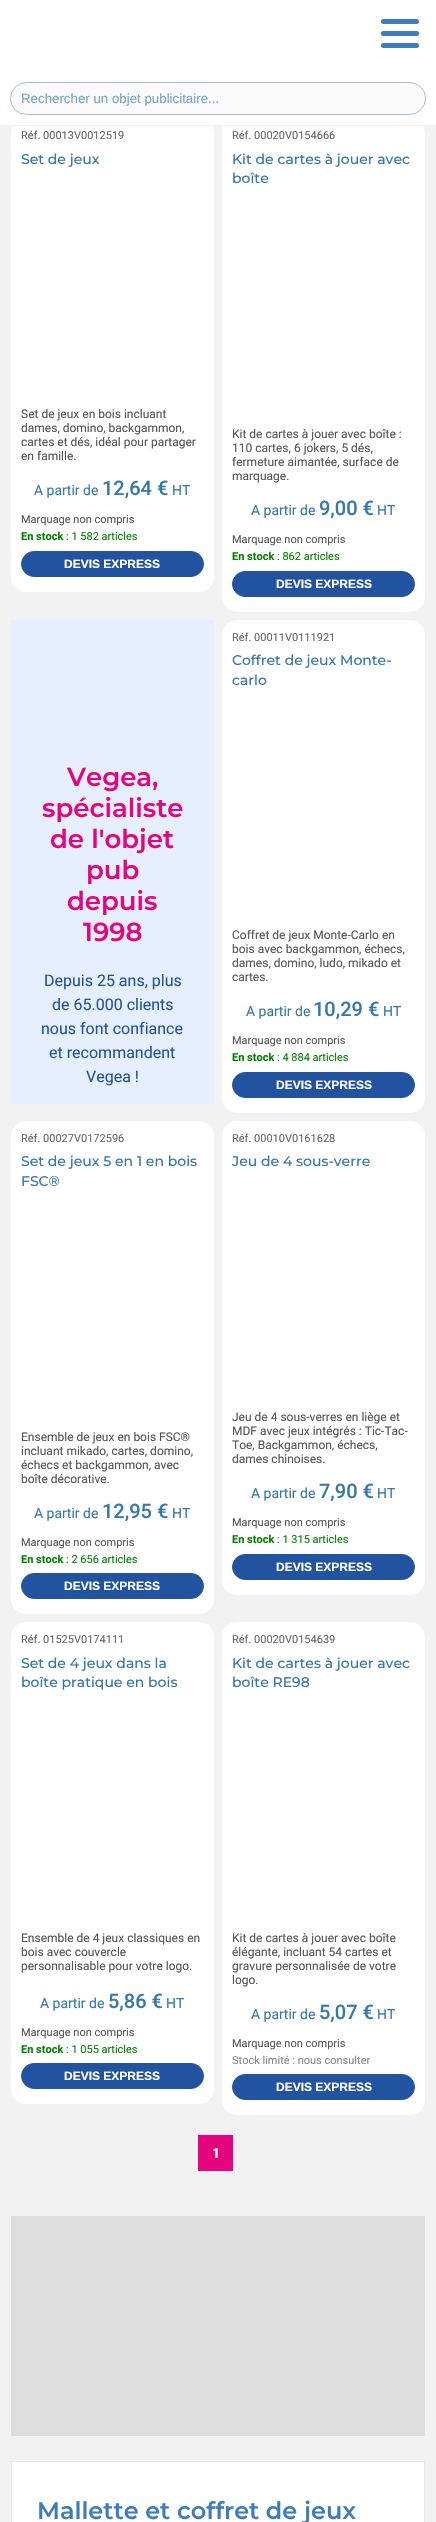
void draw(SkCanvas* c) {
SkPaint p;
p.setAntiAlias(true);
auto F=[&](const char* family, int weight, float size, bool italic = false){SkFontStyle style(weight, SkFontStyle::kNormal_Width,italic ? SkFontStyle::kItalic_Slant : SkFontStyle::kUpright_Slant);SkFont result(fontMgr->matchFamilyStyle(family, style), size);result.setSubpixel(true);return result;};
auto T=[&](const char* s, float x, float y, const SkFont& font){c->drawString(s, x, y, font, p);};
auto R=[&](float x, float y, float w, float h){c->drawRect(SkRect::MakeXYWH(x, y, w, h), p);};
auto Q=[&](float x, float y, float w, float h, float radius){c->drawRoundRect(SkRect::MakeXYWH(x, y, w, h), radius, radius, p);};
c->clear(0xfff2f2f2);
p.setColor(0xffffffff);
Q(11,118,203,474,15);
Q(222,118,203,494,15);
R(0,0,436,125);
p.setColor(0xfff0f0f0);
R(13,125,410,1);
p.setColor(0xff3d7dbb);
Q(381,19,38,5,2.5);
Q(381,31,38,5,2.5);
Q(381,43,38,5,2.5);
p.setColor(0xfffafafa);
c->drawRoundRect(SkRect::MakeXYWH(10.5,82.5,415,32),16,16,p);
p.setStroke(true);
p.setStrokeWidth(1);
p.setColor(0xffa0bfde);
c->drawRoundRect(SkRect::MakeXYWH(10.5,82.5,415,32),16,16,p);
auto f1 = F("Liberation Sans",400,13.3);
p.setStroke(false);
p.setColor(0xff77a4cf);
T("Rechercher un objet publicitaire...",21,103,f1);
auto f2 = F("Roboto",400,11);
p.setColor(0xff666666);
T("Réf. 00013V0012519",21,139,f2);
auto f3 = F("Montserrat",500,14);
p.setColor(0xff3778ab);
T("Set de jeux",21,164,f3);
auto f4 = F("Roboto",400,12);
p.setColor(0xff555555);
T("Set de jeux en bois incluant",21,418,f4);
T("dames, domino, backgammon,",21,432,f4);
T("cartes et dés, idéal pour partager",21,446,f4);
T("en famille.",21,460,f4);
auto f5 = F("Roboto",400,14);
p.setColor(0xff3778ab);
T("A partir de",34,495,f5);
auto f6 = F("Roboto",500,20);
T("12,64 €",102,495,f6);
T("HT",172,495,f5);
p.setColor(0xff555555);
T("Marquage non compris",21,523,f2);
auto f7 = F("Roboto",700,11);
p.setColor(0xff008000);
T("En stock",21,540,f7);
T(": 1 582 articles",66,540,f2);
p.setColor(0xff2253a0);
c->drawRoundRect(SkRect::MakeXYWH(21.5,551.5,182,25),12.5,12.5,p);
p.setStroke(true);
c->drawRoundRect(SkRect::MakeXYWH(21.5,551.5,182,25),12.5,12.5,p);
auto f8 = F("Liberation Sans",700,12);
p.setStroke(false);
p.setColor(0xffffffff);
T("DEVIS EXPRESS",64,568,f8);
p.setColor(0xff666666);
T("Réf. 00020V0154666",232,139,f2);
p.setColor(0xff3778ab);
T("Kit de cartes à jouer avec",232,164,f3);
T("boîte",232,183,f3);
p.setColor(0xff555555);
T("Kit de cartes à jouer avec boîte :",232,438,f4);
T("110 cartes, 6 jokers, 5 dés,",232,452,f4);
T("fermeture aimantée, surface de",232,466,f4);
T("marquage.",232,480,f4);
p.setColor(0xff3778ab);
T("A partir de",251,515,f5);
T("9,00 €",319,515,f6);
T("HT",377,515,f5);
p.setColor(0xff555555);
T("Marquage non compris",232,543,f2);
p.setColor(0xff008000);
T("En stock",232,560,f7);
T(": 862 articles",277,560,f2);
p.setColor(0xff2253a0);
c->drawRoundRect(SkRect::MakeXYWH(232.5,571.5,182,25),12.5,12.5,p);
p.setStroke(true);
c->drawRoundRect(SkRect::MakeXYWH(232.5,571.5,182,25),12.5,12.5,p);
p.setStroke(false);
p.setColor(0xffffffff);
T("DEVIS EXPRESS",276,588,f8);
p.setColor(0xffe5efff);
R(11,620,203,484);
auto f9 = F("Montserrat",600,26);
p.setColor(0xffe50580);
T("Vegea,",67,786,f9);
T("spécialiste",42,817,f9);
T("de l'objet",50,848,f9);
T("pub",86,879,f9);
T("depuis",67,910,f9);
T("1998",83,941,f9);
auto f10 = F("Roboto",400,16);
p.setColor(0xff2253a0);
T("Depuis 25 ans, plus",44,986,f10);
T("de 65.000 clients",52,1010,f10);
T("nous font confiance",41,1034,f10);
T("et recommandent",49,1058,f10);
T("Vegea !",86,1082,f10);
p.setColor(0xffffffff);
Q(222,620,203,493,15);
p.setColor(0xff666666);
T("Réf. 00011V0111921",232,641,f2);
p.setColor(0xff3778ab);
T("Coffret de jeux Monte-",232,665,f3);
T("carlo",232,685,f3);
p.setColor(0xff555555);
T("Coffret de jeux Monte-Carlo en",232,939,f4);
T("bois avec backgammon, échecs,",232,953,f4);
T("dames, domino, ludo, mikado et",232,967,f4);
T("cartes.",232,981,f4);
p.setColor(0xff3778ab);
T("A partir de",246,1016,f5);
T("10,29 €",313,1016,f6);
T("HT",383,1016,f5);
p.setColor(0xff555555);
T("Marquage non compris",232,1044,f2);
p.setColor(0xff008000);
T("En stock",232,1061,f7);
T(": 4 884 articles",277,1061,f2);
p.setColor(0xff2253a0);
c->drawRoundRect(SkRect::MakeXYWH(232.5,1072.5,182,25),12.5,12.5,p);
p.setStroke(true);
c->drawRoundRect(SkRect::MakeXYWH(232.5,1072.5,182,25),12.5,12.5,p);
p.setStroke(false);
p.setColor(0xffffffff);
T("DEVIS EXPRESS",276,1089,f8);
Q(11,1121,203,493,15);
p.setColor(0xff666666);
T("Réf. 00027V0172596",21,1142,f2);
p.setColor(0xff3778ab);
T("Set de jeux 5 en 1 en bois",21,1166,f3);
T("FSC®",21,1186,f3);
p.setColor(0xff555555);
T("Ensemble de jeux en bois FSC®",21,1441,f4);
T("incluant mikado, cartes, domino,",21,1455,f4);
T("échecs et backgammon, avec",21,1469,f4);
T("boîte décorative.",21,1483,f4);
p.setColor(0xff3778ab);
T("A partir de",34,1518,f5);
T("12,95 €",102,1518,f6);
T("HT",172,1518,f5);
p.setColor(0xff555555);
T("Marquage non compris",21,1546,f2);
p.setColor(0xff008000);
T("En stock",21,1563,f7);
T(": 2 656 articles",66,1563,f2);
p.setColor(0xff2253a0);
c->drawRoundRect(SkRect::MakeXYWH(21.5,1573.5,182,25),12.5,12.5,p);
p.setStroke(true);
c->drawRoundRect(SkRect::MakeXYWH(21.5,1573.5,182,25),12.5,12.5,p);
p.setStroke(false);
p.setColor(0xffffffff);
T("DEVIS EXPRESS",64,1590,f8);
Q(222,1121,203,474,15);
p.setColor(0xff666666);
T("Réf. 00010V0161628",232,1142,f2);
p.setColor(0xff3778ab);
T("Jeu de 4 sous-verre",232,1166,f3);
p.setColor(0xff555555);
T("Jeu de 4 sous-verres en liège et",232,1421,f4);
T("MDF avec jeux intégrés : Tic-Tac-",232,1435,f4);
T("Toe, Backgammon, échecs,",232,1449,f4);
T("dames chinoises.",232,1463,f4);
p.setColor(0xff3778ab);
T("A partir de",251,1498,f5);
T("7,90 €",319,1498,f6);
T("HT",377,1498,f5);
p.setColor(0xff555555);
T("Marquage non compris",232,1526,f2);
p.setColor(0xff008000);
T("En stock",232,1543,f7);
T(": 1 315 articles",277,1543,f2);
p.setColor(0xff2253a0);
c->drawRoundRect(SkRect::MakeXYWH(232.5,1554.5,182,25),12.5,12.5,p);
p.setStroke(true);
c->drawRoundRect(SkRect::MakeXYWH(232.5,1554.5,182,25),12.5,12.5,p);
p.setStroke(false);
p.setColor(0xffffffff);
T("DEVIS EXPRESS",276,1571,f8);
Q(11,1622,203,482,15);
p.setColor(0xff666666);
T("Réf. 01525V0174111",21,1643,f2);
p.setColor(0xff3778ab);
T("Set de 4 jeux dans la",21,1668,f3);
T("boîte pratique en bois",21,1687,f3);
p.setColor(0xff555555);
T("Ensemble de 4 jeux classiques en",21,1942,f4);
T("bois avec couvercle",21,1956,f4);
T("personnalisable pour votre logo.",21,1970,f4);
p.setColor(0xff3778ab);
T("A partir de",40,2008,f5);
T("5,86 €",108,2008,f6);
T("HT",166,2008,f5);
p.setColor(0xff555555);
T("Marquage non compris",21,2036,f2);
p.setColor(0xff008000);
T("En stock",21,2053,f7);
T(": 1 055 articles",66,2053,f2);
p.setColor(0xff2253a0);
c->drawRoundRect(SkRect::MakeXYWH(21.5,2063.5,182,25),12.5,12.5,p);
p.setStroke(true);
c->drawRoundRect(SkRect::MakeXYWH(21.5,2063.5,182,25),12.5,12.5,p);
p.setStroke(false);
p.setColor(0xffffffff);
T("DEVIS EXPRESS",64,2080,f8);
Q(222,1622,203,493,15);
p.setColor(0xff666666);
T("Réf. 00020V0154639",232,1643,f2);
p.setColor(0xff3778ab);
T("Kit de cartes à jouer avec",232,1668,f3);
T("boîte RE98",232,1687,f3);
p.setColor(0xff555555);
T("Kit de cartes à jouer avec boîte",232,1942,f4);
T("élégante, incluant 54 cartes et",232,1956,f4);
T("gravure personnalisée de votre",232,1970,f4);
T("logo.",232,1984,f4);
p.setColor(0xff3778ab);
T("A partir de",251,2019,f5);
T("5,07 €",319,2019,f6);
T("HT",377,2019,f5);
p.setColor(0xff555555);
T("Marquage non compris",232,2047,f2);
p.setColor(0xff888888);
T("Stock limité : nous consulter",232,2064,f2);
p.setColor(0xff2253a0);
c->drawRoundRect(SkRect::MakeXYWH(232.5,2074.5,182,25),12.5,12.5,p);
p.setStroke(true);
c->drawRoundRect(SkRect::MakeXYWH(232.5,2074.5,182,25),12.5,12.5,p);
p.setStroke(false);
p.setColor(0xffffffff);
T("DEVIS EXPRESS",276,2091,f8);
p.setColor(0xffe50580);
R(198,2135,35,36);
auto f11 = F("Roboto",700,14);
p.setColor(0xffffffff);
T("1",212,2158,f11);
p.setColor(0xffdddddd);
R(11,2216,414,220);
p.setColor(0xffffffff);
c->drawRect(SkRect::MakeXYWH(11.5,2461.5,413,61),p);
p.setStroke(true);
p.setColor(0xffeaeaea);
c->drawRect(SkRect::MakeXYWH(11.5,2461.5,413,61),p);
auto f12 = F("Montserrat",600,24);
p.setStroke(false);
p.setColor(0xff3d7dbb);
T("Mallette et coffret de jeux",37,2519,f12);
}
